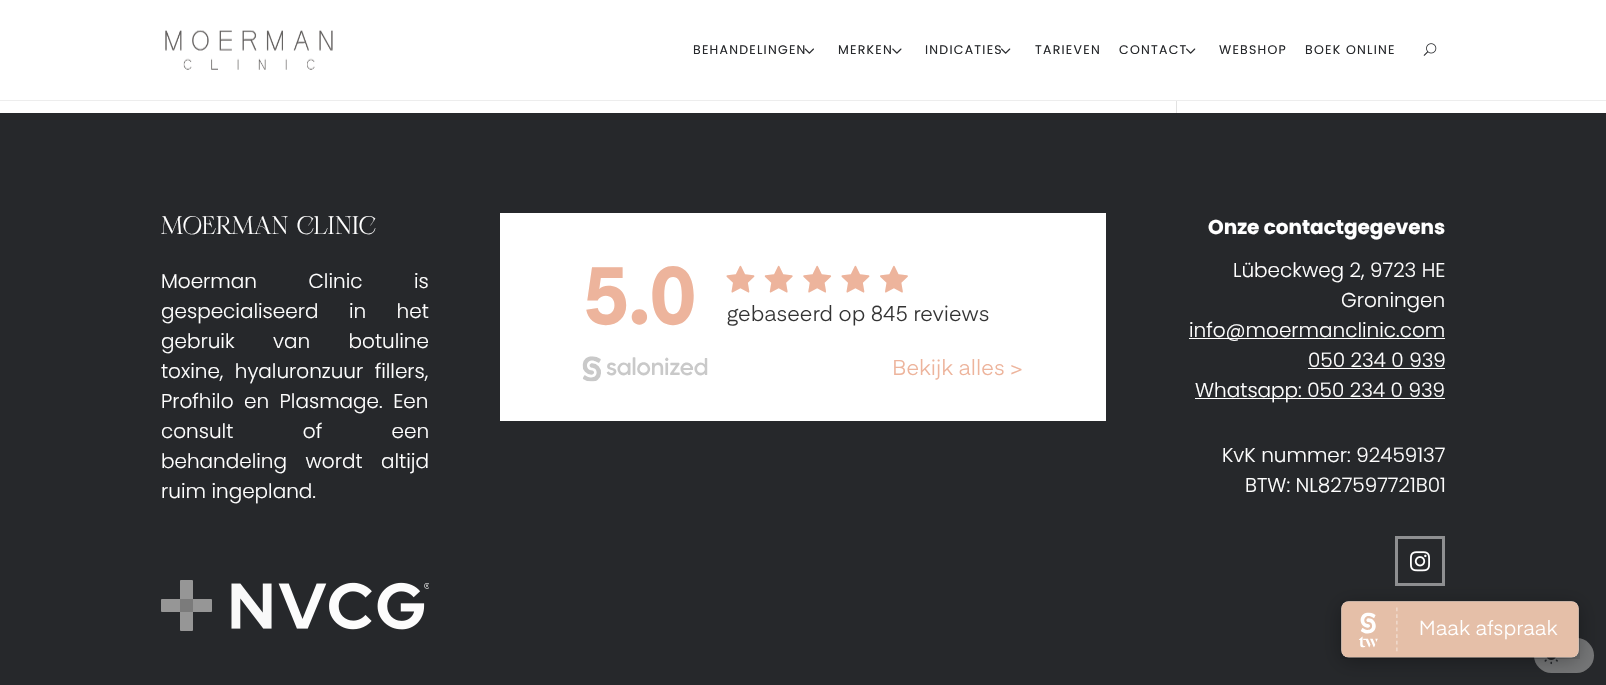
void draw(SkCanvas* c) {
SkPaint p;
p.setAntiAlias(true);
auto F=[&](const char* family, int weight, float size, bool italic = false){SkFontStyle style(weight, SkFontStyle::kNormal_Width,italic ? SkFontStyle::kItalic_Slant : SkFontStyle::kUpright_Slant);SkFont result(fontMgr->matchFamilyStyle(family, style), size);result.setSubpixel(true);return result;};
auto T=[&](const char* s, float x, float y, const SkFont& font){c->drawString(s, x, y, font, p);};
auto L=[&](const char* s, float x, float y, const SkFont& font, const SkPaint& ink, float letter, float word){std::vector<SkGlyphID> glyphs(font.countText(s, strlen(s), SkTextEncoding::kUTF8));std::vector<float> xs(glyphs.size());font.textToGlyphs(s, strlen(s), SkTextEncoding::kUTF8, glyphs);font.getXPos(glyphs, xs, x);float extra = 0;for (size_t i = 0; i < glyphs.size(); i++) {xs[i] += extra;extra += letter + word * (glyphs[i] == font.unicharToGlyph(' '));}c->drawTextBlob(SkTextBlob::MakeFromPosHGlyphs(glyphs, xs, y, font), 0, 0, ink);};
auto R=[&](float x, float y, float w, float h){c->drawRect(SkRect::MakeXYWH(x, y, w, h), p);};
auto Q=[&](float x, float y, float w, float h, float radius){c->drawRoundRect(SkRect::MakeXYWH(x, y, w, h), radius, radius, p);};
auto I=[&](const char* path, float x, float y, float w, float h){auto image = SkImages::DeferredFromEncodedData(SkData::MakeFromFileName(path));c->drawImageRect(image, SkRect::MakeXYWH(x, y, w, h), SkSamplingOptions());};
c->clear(0xffffffff);
p.setColor(0xffededed);
R(0,100,1606,1);
I("1.png",165,30,168,40);
auto f1 = F("Poppins",400,12.5);
p.setColor(0xff26282b);
L("BEHANDELINGEN",693,54,f1,p,1.25,0);
I("2.png",804,48,10,6);
L("MERKEN",838,54,f1,p,1.25,0);
I("3.png",892,48,10,6);
L("INDICATIES",925,54,f1,p,1.25,0);
I("4.png",1001,48,10,6);
L("TARIEVEN",1035,54,f1,p,1.25,0);
L("CONTACT",1119,54,f1,p,1.25,0);
I("4.png",1186,48,10,6);
L("WEBSHOP",1219,54,f1,p,1.25,0);
L("BOEK ONLINE",1305,54,f1,p,1.25,0);
I("5.png",1423,43,14,13);
p.setColor(0xffe2e2e2);
R(1176,101,1,12);
p.setColor(0xff26282b);
R(0,113,1606,572);
auto f2 = F("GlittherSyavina",400,28.75);
p.setColor(0xffffffff);
T("MOERMAN CLINIC",161,234,f2);
auto f3 = F("Poppins",300,20);
L("Moerman Clinic",161,288,f3,p,0,46);
T("is",414,288,f3);
L("gespecialiseerd in het",161,318,f3,p,0,25);
L("gebruik van botuline",161,348,f3,p,0,33);
L("toxine, hyaluronzuur fillers,",161,378,f3,p,0,6);
L("Profhilo en Plasmage. Een",161,408,f3,p,0,5);
L("consult of een",161,438,f3,p,0,64);
L("behandeling wordt altijd",161,468,f3,p,0,13);
T("ruim ingepland.",161,498,f3);
I("6.png",161,580,268,51);
R(500,213,606,208);
I("7.png",582,265,440,117);
auto f4 = F("Poppins",700,20);
T("Onze contactgegevens",1208,234,f4);
T("Lübeckweg 2, 9723 HE",1233,277,f3);
T("Groningen",1341,307,f3);
R(1189,338,256,1);
T("info@moermanclinic.com",1189,337,f3);
T("050 234 0 939",1308,367,f3);
R(1308,368,137,1);
R(1195,398,250,1);
T("Whatsapp: 050 234 0 939",1195,397,f3);
T("KvK nummer: 92459137",1222,462,f3);
T("BTW: NL827597721B01",1245,492,f3);
p.setStroke(true);
p.setStrokeWidth(3);
p.setColor(0xff8e8f91);
c->drawRect(SkRect::MakeXYWH(1396.5,537.5,47,47),p);
I("8.png",1410,551,20,21);
p.setStroke(false);
p.setColor(0xff757677);
Q(1534,638,60,35,17.5);
I("10.png",1544,657,14,8);
p.setColor(0x4d000000);
p.setMaskFilter(SkMaskFilter::MakeBlur(kNormal_SkBlurStyle, 9.5));
c->drawRoundRect(SkRect::MakeXYWH(1341,605,238,56),8,8,p);
p.setMaskFilter(nullptr);
I("9.png",1340,601,240,58);
}
